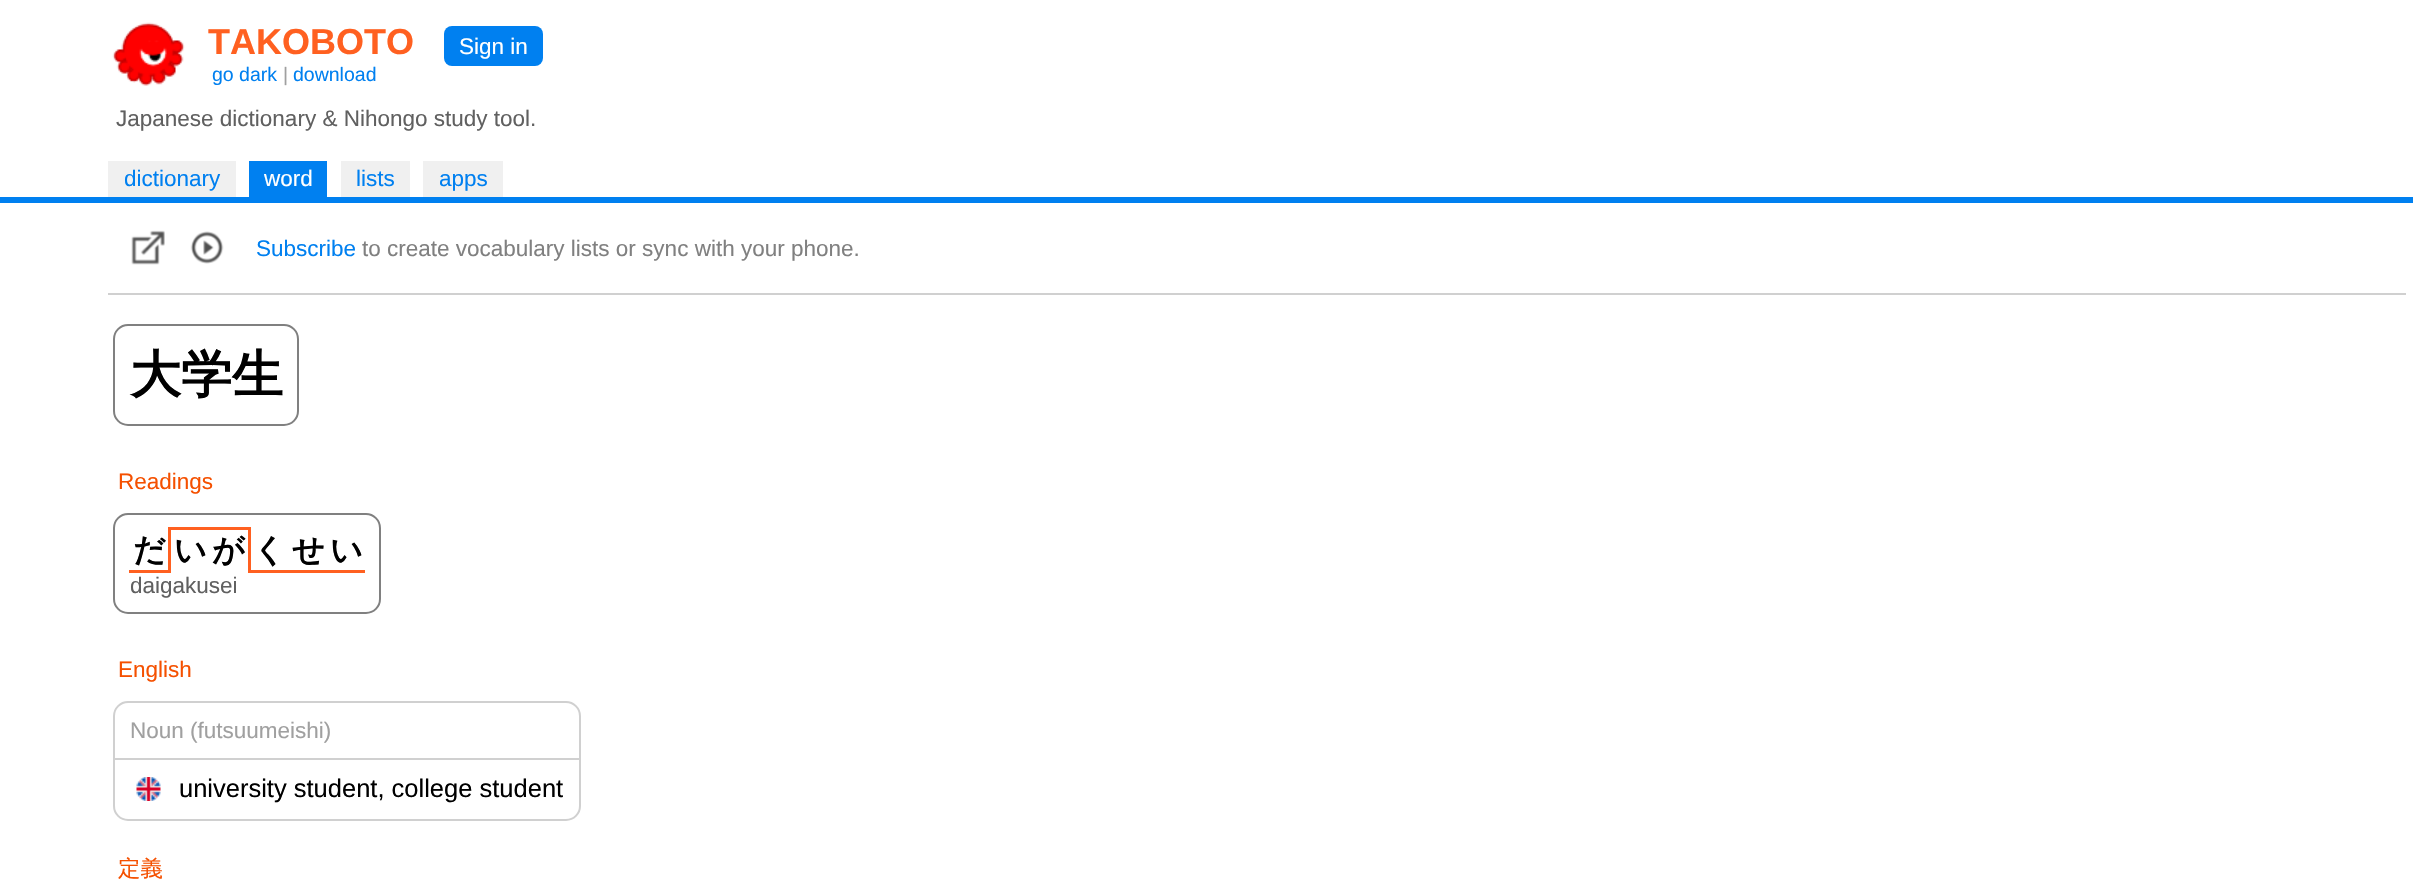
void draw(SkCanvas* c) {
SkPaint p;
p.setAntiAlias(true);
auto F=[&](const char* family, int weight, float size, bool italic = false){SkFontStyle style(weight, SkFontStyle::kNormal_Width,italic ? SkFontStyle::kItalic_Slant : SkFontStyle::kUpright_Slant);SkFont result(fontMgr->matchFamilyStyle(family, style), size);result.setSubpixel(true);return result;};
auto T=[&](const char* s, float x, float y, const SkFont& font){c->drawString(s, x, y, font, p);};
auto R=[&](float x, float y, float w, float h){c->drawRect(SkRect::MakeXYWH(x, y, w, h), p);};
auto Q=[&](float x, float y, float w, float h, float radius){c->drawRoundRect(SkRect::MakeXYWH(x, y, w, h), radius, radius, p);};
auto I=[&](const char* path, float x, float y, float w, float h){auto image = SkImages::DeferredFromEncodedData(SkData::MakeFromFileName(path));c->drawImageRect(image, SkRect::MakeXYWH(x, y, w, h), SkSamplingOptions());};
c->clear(0xffffffff);
p.setColor(0xff0080f0);
R(0,197,2413,6);
I("1.png",112,22,73,64);
auto f1 = F("Liberation Sans",700,36);
p.setColor(0xffff6020);
T("TAKOBOTO",208,54,f1);
auto f2 = F("Liberation Sans",400,19.5);
p.setColor(0xff0080f0);
T("go dark",212,81,f2);
p.setColor(0xffa0a0a0);
T("|",283,81,f2);
p.setColor(0xff0080f0);
T("download",293,81,f2);
Q(444,26,99,40,8);
auto f3 = F("Liberation Sans",400,22.5);
p.setColor(0xffffffff);
T("Sign in",459,54,f3);
p.setColor(0xff606060);
T("Japanese dictionary & Nihongo study tool.",116,126,f3);
p.setColor(0xfff0f0f0);
R(108,161,128,36);
p.setColor(0xff0080f0);
T("dictionary",124,186,f3);
R(249,161,78,36);
p.setColor(0xffffffff);
T("word",264,186,f3);
p.setColor(0xfff0f0f0);
R(341,161,69,36);
p.setColor(0xff0080f0);
T("lists",356,186,f3);
p.setColor(0xfff0f0f0);
R(423,161,80,36);
p.setColor(0xff0080f0);
T("apps",439,186,f3);
p.setColor(0xffd0d0d0);
R(108,293,2298,2);
I("2.png",131,230,34,35);
I("3.png",190,231,34,33);
p.setColor(0xff0080f0);
T("Subscribe",256,256,f3);
p.setColor(0xff808080);
T("to create vocabulary lists or sync with your phone.",362,256,f3);
p.setStroke(true);
p.setStrokeWidth(2);
c->drawRoundRect(SkRect::MakeXYWH(114,325,184,100),14,14,p);
auto f4 = F("WenQuanYi Zen Hei",700,51);
p.setStroke(false);
p.setColor(0xff000000);
T("大学生",130,392,f4);
p.setColor(0xfff55000);
T("Readings",118,489,f3);
p.setStroke(true);
p.setColor(0xff808080);
c->drawRoundRect(SkRect::MakeXYWH(114,514,266,99),14,14,p);
auto f5 = F("WenQuanYi Zen Hei",700,32);
p.setStroke(false);
p.setColor(0xff000000);
T("だ",133,561,f5);
p.setColor(0xffff6020);
R(168,527,3,46);
p.setColor(0xff000000);
T("い",174,561,f5);
T("が",212,561,f5);
p.setColor(0xffff6020);
R(171,527,80,3);
R(248,527,3,46);
p.setColor(0xff000000);
T("く",253,561,f5);
p.setColor(0xffff6020);
R(251,570,114,3);
p.setColor(0xff000000);
T("せ",292,561,f5);
T("い",330,561,f5);
p.setColor(0xff606060);
T("daigakusei",130,593,f3);
p.setColor(0xffff6020);
R(129,570,42,3);
p.setColor(0xfff55000);
T("English",118,677,f3);
p.setStroke(true);
p.setColor(0xffd0d0d0);
c->drawRoundRect(SkRect::MakeXYWH(114,702,466,118),14,14,p);
p.setStroke(false);
R(114,758,465,2);
p.setColor(0xffa0a0a0);
T("Noun (futsuumeishi)",130,738,f3);
I("4.png",136,777,25,24);
auto f6 = F("Liberation Sans",400,25.5);
p.setColor(0xff000000);
T("university student, college student",179,797,f6);
auto f7 = F("WenQuanYi Zen Hei",500,22.5);
p.setColor(0xfff55000);
T("定義",118,876,f7);
}
